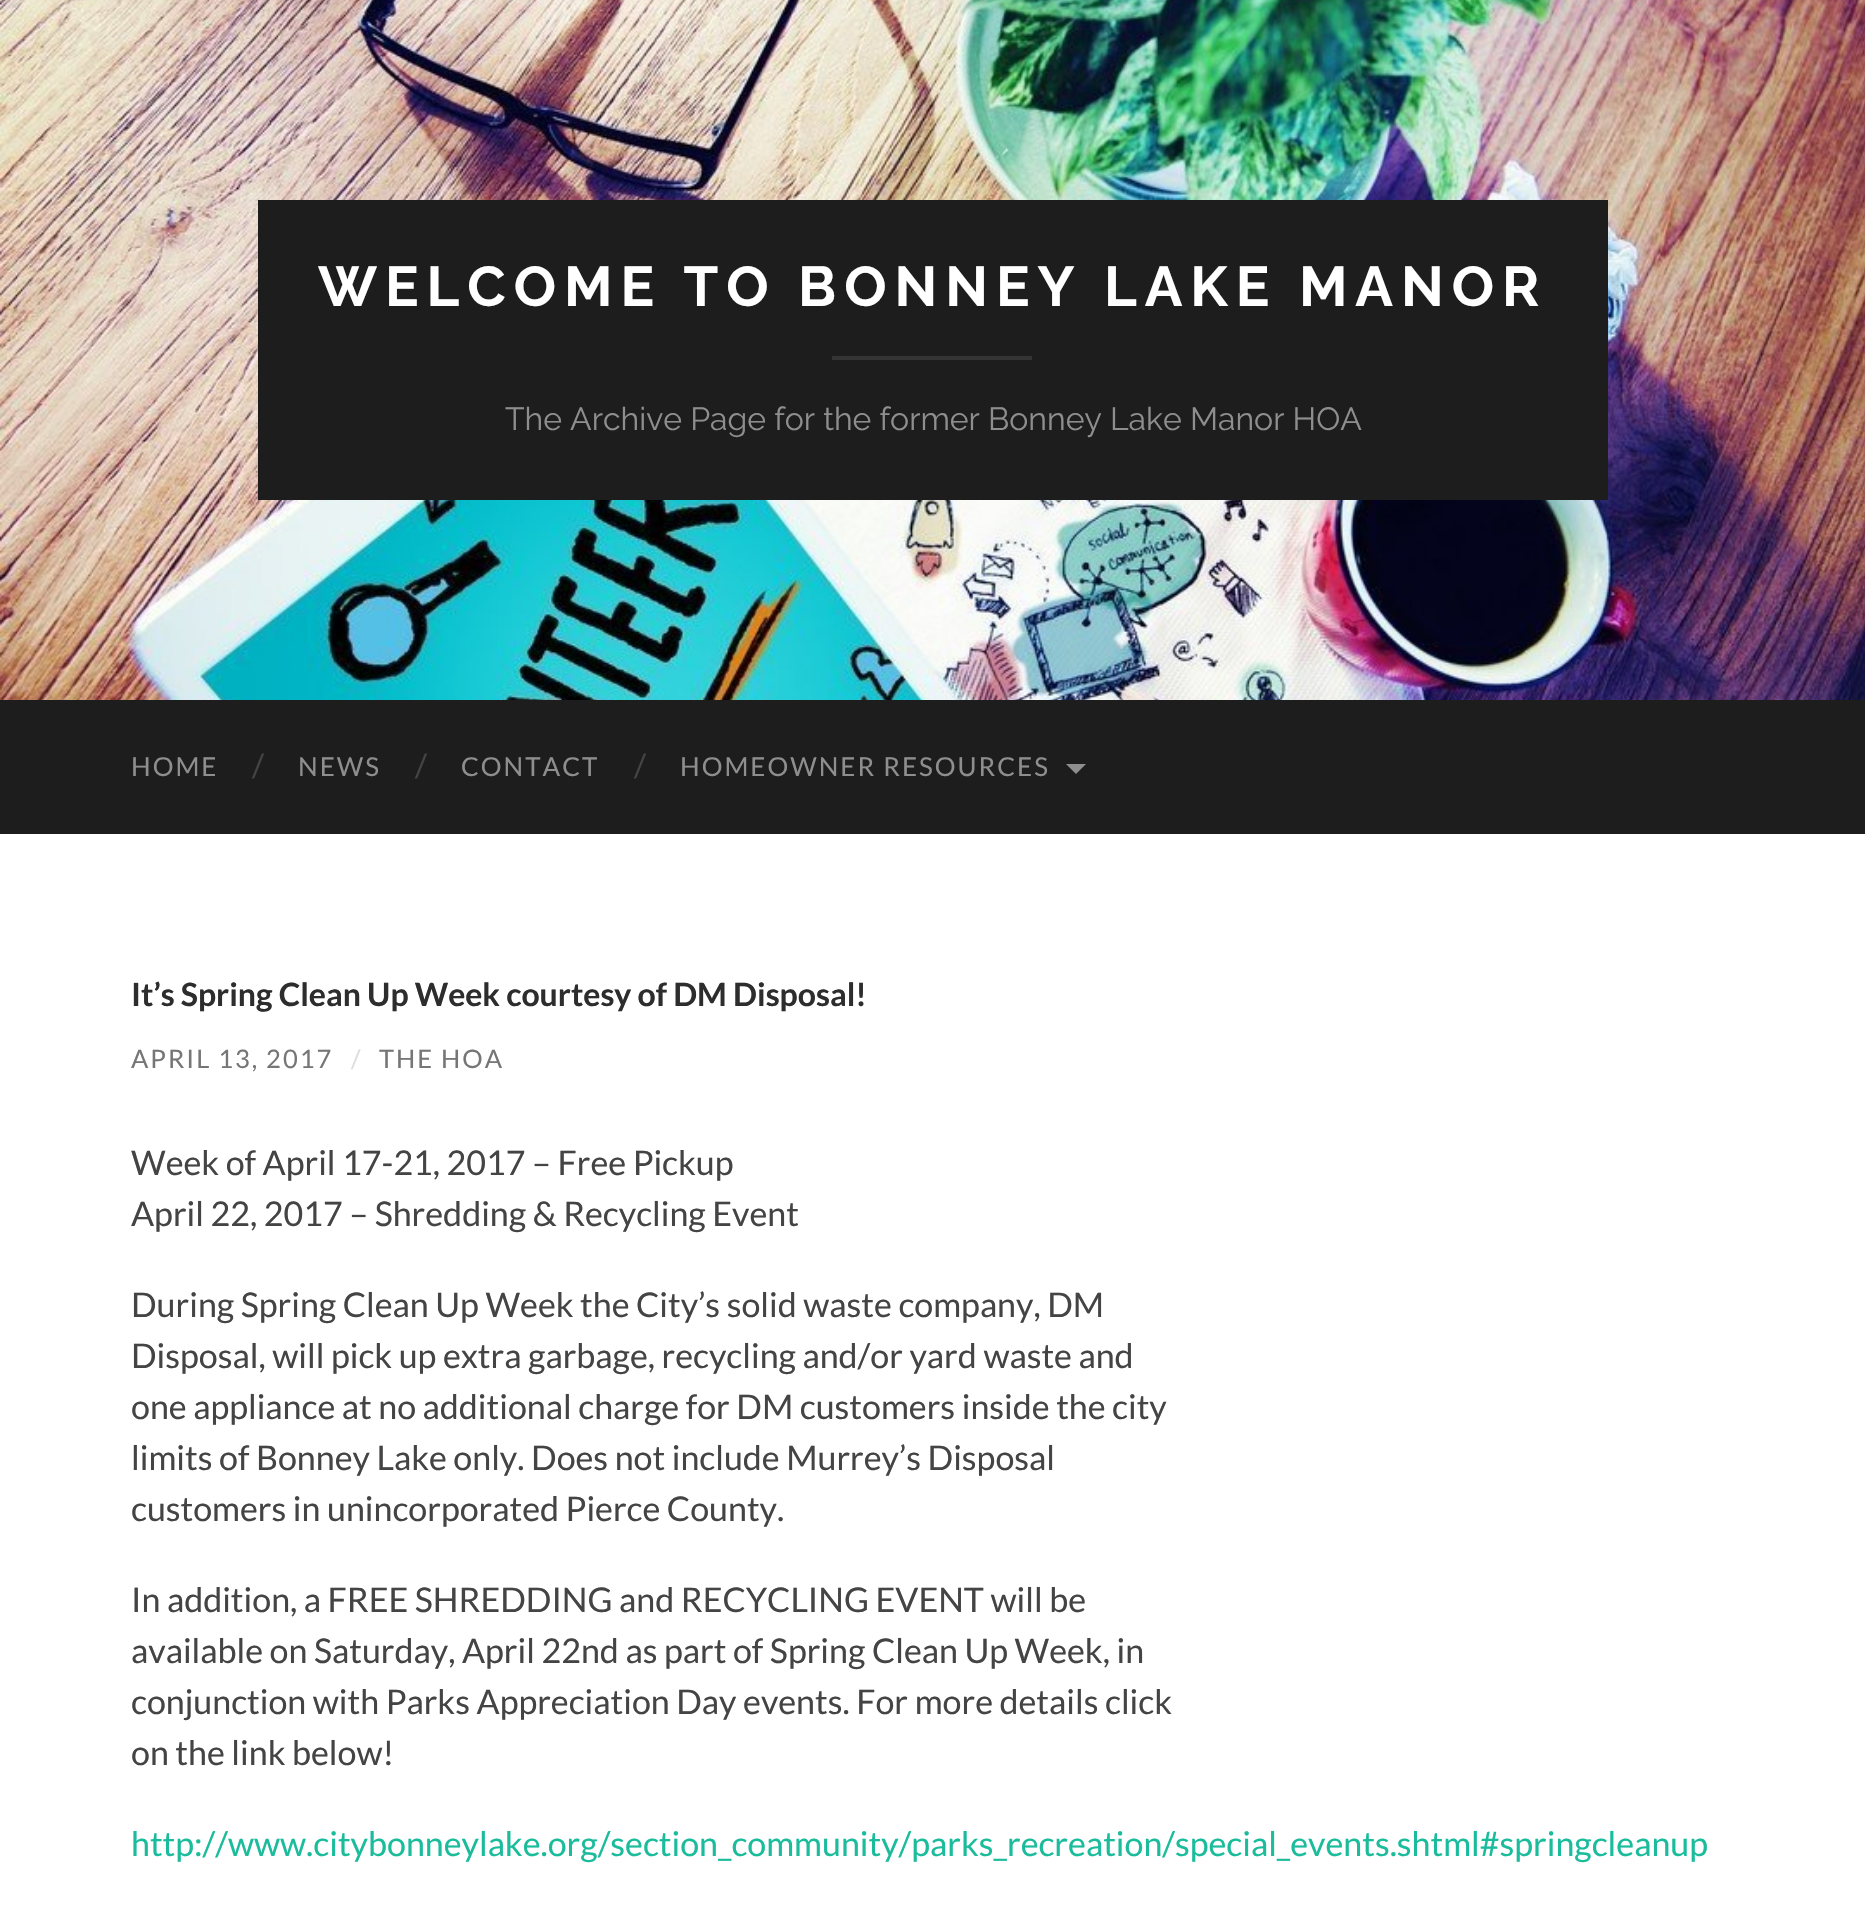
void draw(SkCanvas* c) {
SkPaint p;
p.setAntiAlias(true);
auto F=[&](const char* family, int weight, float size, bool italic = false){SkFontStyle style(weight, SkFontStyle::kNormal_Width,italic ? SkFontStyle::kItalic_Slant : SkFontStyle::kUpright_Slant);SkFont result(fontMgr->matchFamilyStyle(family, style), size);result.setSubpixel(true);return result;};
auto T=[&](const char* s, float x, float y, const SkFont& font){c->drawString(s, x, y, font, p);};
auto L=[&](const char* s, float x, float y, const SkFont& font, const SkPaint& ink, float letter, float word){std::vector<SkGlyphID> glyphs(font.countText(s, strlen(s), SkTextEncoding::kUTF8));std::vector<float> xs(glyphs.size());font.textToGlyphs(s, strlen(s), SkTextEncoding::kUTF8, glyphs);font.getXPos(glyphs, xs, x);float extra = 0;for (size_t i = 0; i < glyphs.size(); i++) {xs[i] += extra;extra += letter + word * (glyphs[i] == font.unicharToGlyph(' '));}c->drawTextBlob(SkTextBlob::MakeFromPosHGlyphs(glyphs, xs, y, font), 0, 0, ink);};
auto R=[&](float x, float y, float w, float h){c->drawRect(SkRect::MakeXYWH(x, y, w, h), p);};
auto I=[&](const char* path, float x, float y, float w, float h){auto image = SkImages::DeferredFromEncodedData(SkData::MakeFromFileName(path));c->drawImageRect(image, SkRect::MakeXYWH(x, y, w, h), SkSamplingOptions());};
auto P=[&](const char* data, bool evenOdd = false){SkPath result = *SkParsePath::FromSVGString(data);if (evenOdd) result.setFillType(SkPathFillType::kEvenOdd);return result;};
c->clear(0xffffffff);
I("1.png",0,0,1865,700);
p.setColor(0xff1d1d1d);
R(258,200,1350,300);
auto f1 = F("Raleway",100,56);
p.setColor(0xffffffff);
L("WELCOME TO BONNEY LAKE MANOR",318,306,f1,p,8,0);
p.setColor(0xff343434);
R(832,356,200,4);
auto f2 = F("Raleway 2",100,32);
p.setColor(0xff8e8e8e);
T("The Archive Page for the former Bonney Lake Manor HOA",505,430,f2);
p.setColor(0xff1d1d1d);
R(0,700,1865,134);
auto f3 = F("Lato",400,26);
p.setColor(0xff8e8e8e);
L("HOME",131,776,f3,p,2,0);
auto f4 = F("Lato",400,32);
p.setColor(0xff444444);
T("/",252,777,f4);
p.setColor(0xff8e8e8e);
L("NEWS",298,776,f3,p,2,0);
p.setColor(0xff444444);
T("/",415,777,f4);
p.setColor(0xff8e8e8e);
L("CONTACT",461,776,f3,p,2,0);
p.setColor(0xff444444);
T("/",634,777,f4);
p.setColor(0xff8e8e8e);
L("HOMEOWNER RESOURCES",680,776,f3,p,2,0);
c->drawPath(P("M1066 764h20l-10 10z"),p);
auto f5 = F("Lato",700,32);
p.setColor(0xff2d2d2d);
T("It’s Spring Clean Up Week courtesy of DM Disposal!",131,1006,f5);
auto f6 = F("Lato",400,25.5);
p.setColor(0xff767676);
L("APRIL 13, 2017",131,1068,f6,p,2,0);
p.setColor(0xffdddddd);
L("/",351,1068,f6,p,2,0);
p.setColor(0xff767676);
L("THE HOA",379,1068,f6,p,2,0);
auto f7 = F("Lato",400,34);
p.setColor(0xff444444);
T("Week of April 17-21, 2017 – Free Pickup",131,1175,f7);
T("April 22, 2017 – Shredding & Recycling Event",131,1226,f7);
T("During Spring Clean Up Week the City’s solid waste company, DM",131,1317,f7);
T("Disposal, will pick up extra garbage, recycling and/or yard waste and",131,1368,f7);
T("one appliance at no additional charge for DM customers inside the city",131,1419,f7);
T("limits of Bonney Lake only. Does not include Murrey’s Disposal",131,1470,f7);
T("customers in unincorporated Pierce County.",131,1521,f7);
T("In addition, a FREE SHREDDING and RECYCLING EVENT will be",131,1612,f7);
T("available on Saturday, April 22nd as part of Spring Clean Up Week, in",131,1663,f7);
T("conjunction with Parks Appreciation Day events. For more details click",131,1714,f7);
T("on the link below!",131,1765,f7);
p.setColor(0xff1abc9c);
T("http://www.citybonneylake.org/section_community/parks_recreation/special_events.shtml#springcleanup",131,1856,f7);
}
